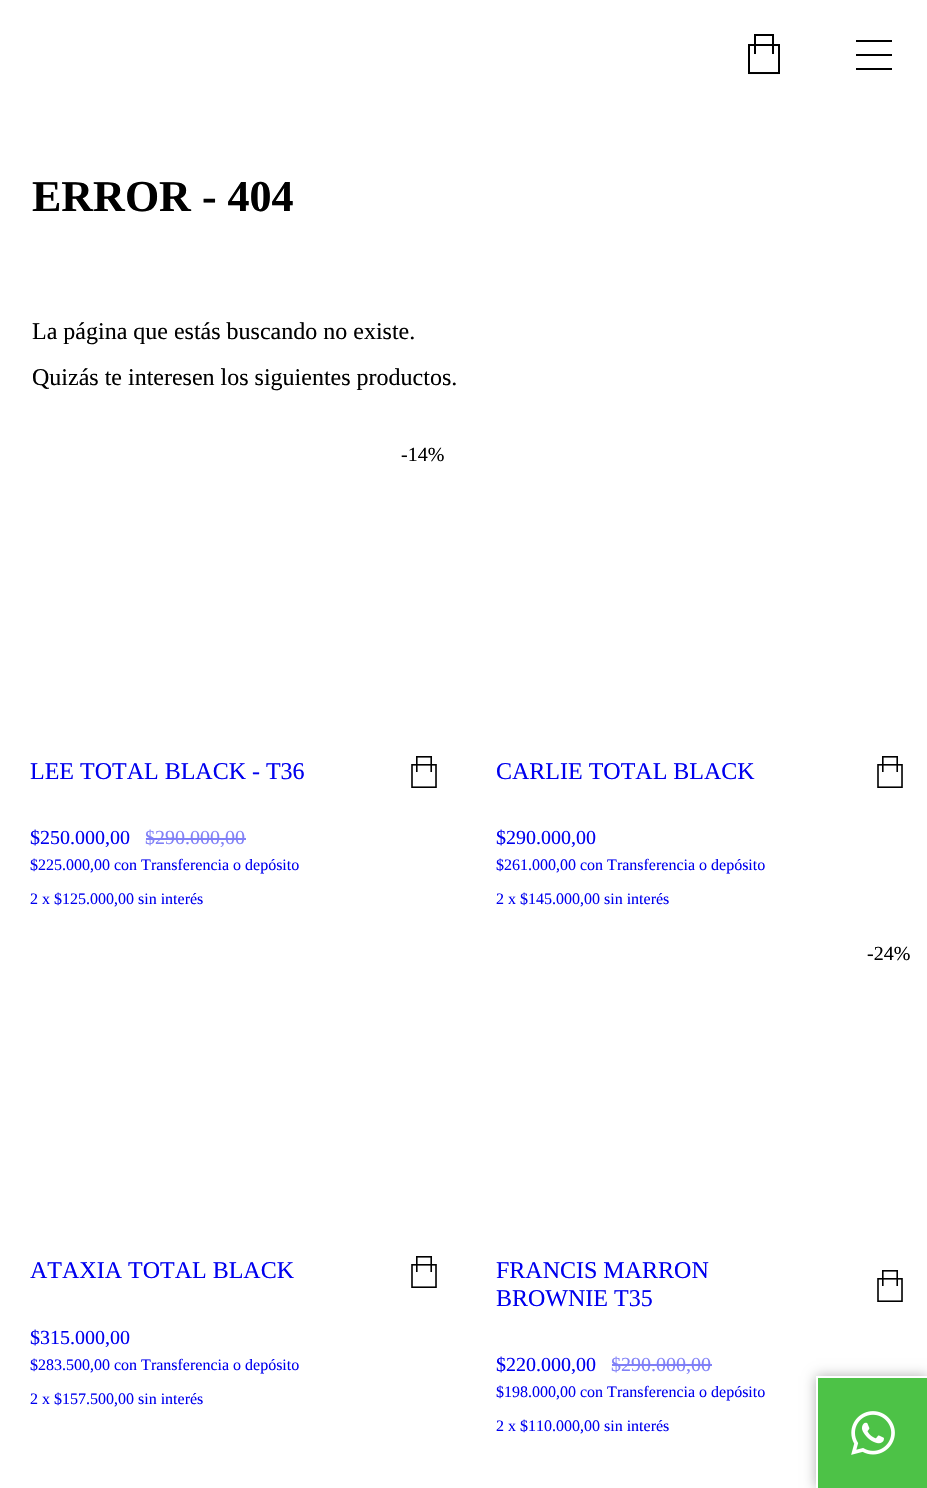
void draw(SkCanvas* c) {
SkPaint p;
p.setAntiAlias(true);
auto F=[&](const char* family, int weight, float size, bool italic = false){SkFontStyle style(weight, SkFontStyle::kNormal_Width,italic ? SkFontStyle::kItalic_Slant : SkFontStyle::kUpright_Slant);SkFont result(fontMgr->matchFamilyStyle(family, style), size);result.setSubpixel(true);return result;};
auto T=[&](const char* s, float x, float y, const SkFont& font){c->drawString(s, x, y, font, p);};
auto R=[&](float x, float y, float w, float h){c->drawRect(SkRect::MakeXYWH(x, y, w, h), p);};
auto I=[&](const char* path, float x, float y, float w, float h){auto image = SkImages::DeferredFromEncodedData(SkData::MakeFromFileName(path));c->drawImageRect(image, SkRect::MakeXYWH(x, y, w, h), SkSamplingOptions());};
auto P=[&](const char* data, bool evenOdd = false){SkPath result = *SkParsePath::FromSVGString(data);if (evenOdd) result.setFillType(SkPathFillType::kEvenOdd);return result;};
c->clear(0xffffffff);
I("1.png",748,34,32,41);
p.setColor(0xff000000);
c->drawPath(P("M892 42h-36v-2h36zm0 14h-36v-2h36zm0 14h-36v-2h36z"),p);
auto f1 = F("Liberation Serif",700,44);
T("ERROR - 404",32,211,f1);
auto f2 = F("Liberation Serif",400,24);
T("La página que estás buscando no existe.",32,339,f2);
T("Quizás te interesen los siguientes productos.",32,385,f2);
auto f3 = F("Liberation Serif",400,20);
T("-14%",401,461,f3);
p.setColor(0xff0000ee);
T("LEE TOTAL BLACK - T36",30,779,f2);
I("2.png",411,756,26,32);
T("$250.000,00",30,844,f3);
p.setColor(0xff8080f7);
T("$290.000,00",145,844,f3);
R(146,838,100,2);
auto f4 = F("Liberation Serif",400,16);
p.setColor(0xff0000ee);
T("$225.000,00 con Transferencia o depósito",30,870,f4);
T("2 x $125.000,00 sin interés",30,904,f4);
T("CARLIE TOTAL BLACK",496,779,f2);
I("2.png",877,756,26,32);
T("$290.000,00",496,844,f3);
T("$261.000,00 con Transferencia o depósito",496,870,f4);
T("2 x $145.000,00 sin interés",496,904,f4);
T("ATAXIA TOTAL BLACK",30,1278,f2);
I("2.png",411,1256,26,32);
T("$315.000,00",30,1344,f3);
T("$283.500,00 con Transferencia o depósito",30,1370,f4);
T("2 x $157.500,00 sin interés",30,1404,f4);
p.setColor(0xff000000);
T("-24%",867,960,f3);
p.setColor(0xff0000ee);
T("FRANCIS MARRON",496,1278,f2);
T("BROWNIE T35",496,1306,f2);
I("2.png",877,1270,26,32);
T("$220.000,00",496,1371,f3);
p.setColor(0xff8080f7);
T("$290.000,00",611,1371,f3);
R(612,1364,100,2);
p.setColor(0xff0000ee);
T("$198.000,00 con Transferencia o depósito",496,1397,f4);
T("2 x $110.000,00 sin interés",496,1431,f4);
p.setColor(0x4d000000);
p.setMaskFilter(SkMaskFilter::MakeBlur(kNormal_SkBlurStyle, 6));
c->drawRect(SkRect::MakeXYWH(816,1376,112,112),p);
p.setMaskFilter(nullptr);
p.setColor(0xff4dc247);
R(818,1378,109,110);
p.setColor(0xffffffff);
R(816,1376,111,2);
R(816,1376,2,112);
I("3.png",851,1411,44,44);
}
